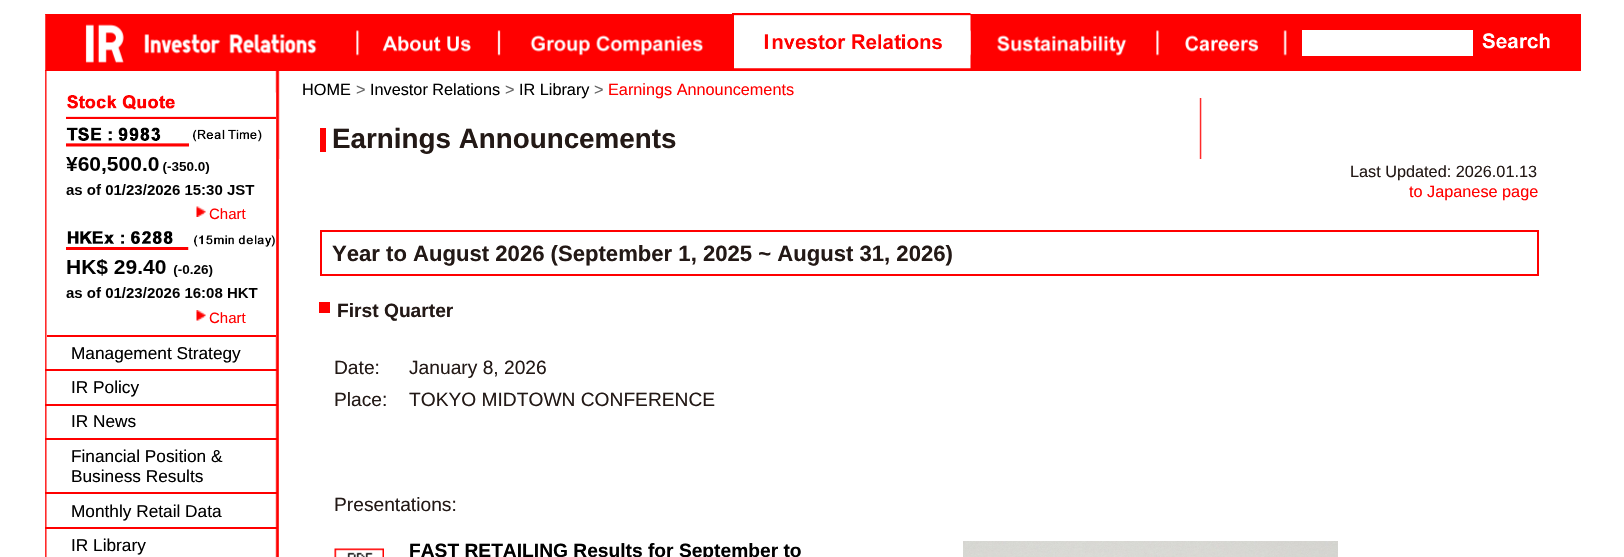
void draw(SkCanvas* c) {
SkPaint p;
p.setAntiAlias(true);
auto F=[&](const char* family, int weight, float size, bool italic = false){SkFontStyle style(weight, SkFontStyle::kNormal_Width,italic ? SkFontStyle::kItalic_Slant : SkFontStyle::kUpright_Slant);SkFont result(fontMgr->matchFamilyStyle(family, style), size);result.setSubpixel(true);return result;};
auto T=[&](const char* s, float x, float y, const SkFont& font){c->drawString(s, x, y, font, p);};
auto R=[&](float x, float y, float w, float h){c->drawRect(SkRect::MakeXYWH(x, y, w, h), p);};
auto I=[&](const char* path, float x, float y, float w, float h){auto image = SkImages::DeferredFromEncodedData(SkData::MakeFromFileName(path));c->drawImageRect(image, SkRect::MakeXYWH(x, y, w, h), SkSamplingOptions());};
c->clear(0xffffffff);
p.setColor(0xffff0000);
R(45,14,1536,57);
I("1.png",45,14,1242,56);
I("2.png",732,13,239,56);
p.setColor(0xffffffff);
R(1302,30,171,26);
I("3.png",1482,33,68,16);
I("4.png",45,71,1157,486);
R(275,93,1,242);
p.setColor(0xffff0000);
R(47,335,229,2);
I("5.png",66,92,210,55);
I("6.png",66,157,189,38);
I("7.png",196,206,10,11);
auto f1 = F("Liberation Sans",400,15);
T("Chart",209,219,f1);
I("8.png",66,231,209,19);
I("9.png",66,259,192,39);
I("10.png",196,310,10,11);
T("Chart",209,323,f1);
R(45,369,233,2);
auto f2 = F("Liberation Sans",400,17.25);
p.setColor(0xff000000);
T("Management Strategy",71,359,f2);
p.setColor(0xffff0000);
R(45,404,233,2);
p.setColor(0xff000000);
T("IR Policy",71,393,f2);
p.setColor(0xffff0000);
R(45,438,233,2);
p.setColor(0xff000000);
T("IR News",71,427,f2);
p.setColor(0xffff0000);
R(45,492,233,2);
p.setColor(0xff000000);
T("Financial Position &",71,462,f2);
T("Business Results",71,482,f2);
p.setColor(0xffff0000);
R(45,527,233,2);
p.setColor(0xff000000);
T("Monthly Retail Data",71,517,f2);
T("IR Library",71,551,f2);
p.setColor(0xffffffff);
R(1199,71,3,27);
auto f3 = F("Liberation Sans",400,16.25);
p.setColor(0xff000000);
T("HOME",302,95,f3);
p.setColor(0xff666666);
T(">",356,95,f3);
p.setColor(0xff000000);
T("Investor Relations",370,95,f3);
p.setColor(0xff666666);
T(">",505,95,f3);
p.setColor(0xff000000);
T("IR Library",519,95,f3);
p.setColor(0xff666666);
T(">",594,95,f3);
p.setColor(0xffff0000);
T("Earnings Announcements",608,95,f3);
R(320,128,6,24);
auto f4 = F("Liberation Sans",700,27.8);
p.setColor(0xff231916);
T("Earnings Announcements",332,148,f4);
p.setColor(0xffffffff);
R(279,159,923,398);
p.setColor(0xff231916);
T("Last Updated: 2026.01.13",1350,177,f3);
p.setColor(0xffff0000);
T("to Japanese page",1409,197,f3);
p.setStroke(true);
p.setStrokeWidth(2);
c->drawRect(SkRect::MakeXYWH(321,231,1217,44),p);
auto f5 = F("Liberation Sans",700,22.1);
p.setStroke(false);
p.setColor(0xff231916);
T("Year to August 2026 (September 1, 2025 ~ August 31, 2026)",332,261,f5);
p.setColor(0xffff0000);
R(319,302,11,11);
auto f6 = F("Liberation Sans",700,19.2);
p.setColor(0xff231916);
T("First Quarter",337,317,f6);
auto f7 = F("Liberation Sans",400,19.2);
T("Date:",334,374,f7);
T("January 8, 2026",409,374,f7);
T("Place:",334,406,f7);
T("TOKYO MIDTOWN CONFERENCE",409,406,f7);
T("Presentations:",334,511,f7);
I("11.png",334,548,50,9);
p.setColor(0xff000000);
T("FAST RETAILING Results for September to",409,557,f6);
I("12.png",963,541,375,16);
}
